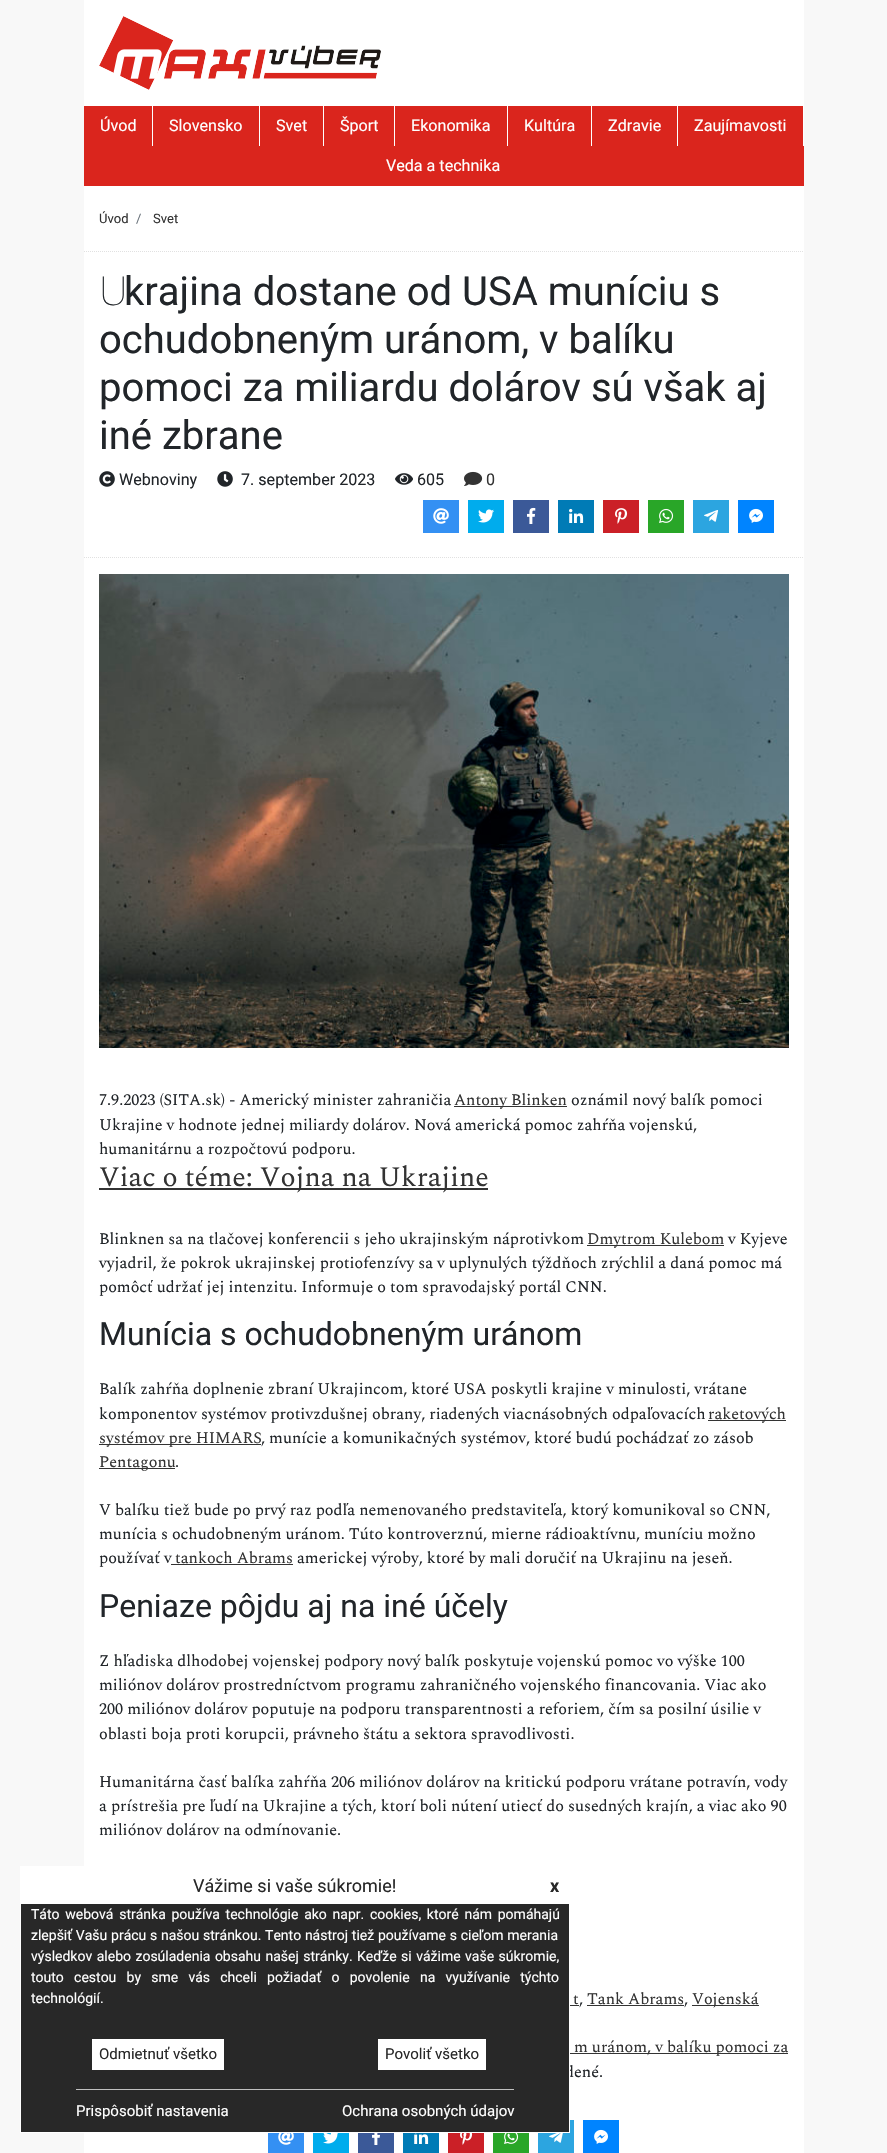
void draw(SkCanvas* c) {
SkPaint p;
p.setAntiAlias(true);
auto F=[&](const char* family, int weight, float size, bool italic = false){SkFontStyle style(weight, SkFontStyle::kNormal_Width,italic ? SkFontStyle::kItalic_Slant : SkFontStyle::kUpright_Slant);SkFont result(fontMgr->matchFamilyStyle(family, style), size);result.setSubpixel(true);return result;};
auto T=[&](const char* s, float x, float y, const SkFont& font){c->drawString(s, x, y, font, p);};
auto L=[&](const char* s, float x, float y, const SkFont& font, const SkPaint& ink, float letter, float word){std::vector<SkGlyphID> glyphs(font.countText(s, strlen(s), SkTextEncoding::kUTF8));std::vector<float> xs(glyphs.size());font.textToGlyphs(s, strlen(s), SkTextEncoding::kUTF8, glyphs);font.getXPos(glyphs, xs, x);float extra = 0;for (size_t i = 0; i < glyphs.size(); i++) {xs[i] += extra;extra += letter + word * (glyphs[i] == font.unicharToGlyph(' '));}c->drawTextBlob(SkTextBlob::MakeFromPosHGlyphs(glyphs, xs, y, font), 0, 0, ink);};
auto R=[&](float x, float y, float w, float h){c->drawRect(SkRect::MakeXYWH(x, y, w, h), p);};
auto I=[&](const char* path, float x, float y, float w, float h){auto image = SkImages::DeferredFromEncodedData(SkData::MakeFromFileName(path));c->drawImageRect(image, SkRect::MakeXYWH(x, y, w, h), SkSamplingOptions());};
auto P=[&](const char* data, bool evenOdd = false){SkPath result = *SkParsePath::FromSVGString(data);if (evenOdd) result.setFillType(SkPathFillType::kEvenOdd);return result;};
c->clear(0xfff8f8f8);
p.setColor(0xffffffff);
R(84,0,720,2153);
I("1.png",99,16,282,74);
p.setColor(0xffda251d);
R(84,106,720,80);
p.setColor(0xffffffff);
R(152,106,1,40);
auto f1 = F("Roboto",400,16.1);
T("Úvod",100,131,f1);
R(259,106,1,40);
T("Slovensko",169,131,f1);
R(323,106,1,40);
T("Svet",276,131,f1);
R(394,106,1,40);
T("Šport",340,131,f1);
R(507,106,1,40);
T("Ekonomika",411,131,f1);
R(591,106,1,40);
T("Kultúra",524,131,f1);
R(677,106,1,40);
T("Zdravie",608,131,f1);
R(803,106,1,40);
T("Zaujímavosti",694,131,f1);
T("Veda a technika",386,171,f1);
p.setStroke(true);
p.setStrokeWidth(1);
p.setColor(0xffe1e1e1);
p.setPathEffect(SkDashPathEffect::Make({{1,1}}, 0));
c->drawPath(P("M84 251.5h720"),p);
p.setPathEffect(nullptr);
auto f2 = F("Roboto",400,13);
p.setStroke(false);
p.setColor(0xff333333);
T("Úvod",99,223,f2);
p.setColor(0xff6c757d);
T("/",136,223,f2);
p.setColor(0xff333333);
T("Svet",153,223,f2);
p.setStroke(true);
p.setColor(0xffe1e1e1);
p.setPathEffect(SkDashPathEffect::Make({{1,1}}, 0));
c->drawPath(P("M84 557.5h720"),p);
p.setPathEffect(nullptr);
auto f3 = F("Noto Sans",100,40);
p.setStroke(false);
p.setColor(0xff212529);
T("U",99,305,f3);
auto f4 = F("Roboto",400,40);
T("krajina dostane od USA muníciu s",124,305,f4);
T("ochudobneným uránom, v balíku",99,353,f4);
T("pomoci za miliardu dolárov sú však aj",99,401,f4);
T("iné zbrane",99,449,f4);
I("2.png",99,471,16,16);
T("Webnoviny",119,485,f1);
I("3.png",217,471,16,16);
T("7. september 2023",241,485,f1);
I("4.png",395,473,18,12);
T("605",417,485,f1);
I("5.png",464,471,19,15);
p.setColor(0xff333333);
T("0",486,485,f1);
p.setColor(0xff3490f3);
R(423,500,36,33);
I("6.png",433,508,16,16);
p.setColor(0xff00aced);
R(468,500,36,33);
I("7.png",478,509,16,14);
p.setColor(0xff3b5998);
R(513,500,36,33);
I("8.png",527,507,9,17);
p.setColor(0xff007bb6);
R(558,500,36,33);
I("9.png",569,508,15,15);
p.setColor(0xffcb2027);
R(603,500,36,33);
I("10.png",615,508,13,16);
p.setColor(0xff29a628);
R(648,500,36,33);
I("11.png",659,508,15,15);
p.setColor(0xff2ca5e0);
R(693,500,36,33);
I("12.png",704,510,15,12);
p.setColor(0xff0084ff);
R(738,500,36,33);
I("13.png",749,508,14,15);
I("14.png",99,574,690,474);
auto f5 = F("Spectral",400,16.1);
p.setColor(0xff212529);
T("7.9.2023 (SITA.sk) - Americký minister zahraničia",99,1105,f5);
p.setColor(0xff333333);
R(454,1106,113,1);
T("Antony Blinken",454,1105,f5);
p.setColor(0xff212529);
T("oznámil nový balík pomoci",571,1105,f5);
T("Ukrajine v hodnote jednej miliardy dolárov. Nová americká pomoc zahŕňa vojenskú,",99,1130,f5);
T("humanitárnu a rozpočtovú podporu.",99,1154,f5);
p.setColor(0xff333333);
R(99,1188,389,2);
auto f6 = F("Spectral",400,28);
T("Viac o téme: Vojna na Ukrajine",99,1186,f6);
p.setColor(0xff212529);
T("Blinknen sa na tlačovej konferencii s jeho ukrajinským náprotivkom",99,1244,f5);
p.setColor(0xff333333);
R(587,1245,137,1);
T("Dmytrom Kulebom",587,1244,f5);
p.setColor(0xff212529);
T("v Kyjeve",728,1244,f5);
T("vyjadril, že pokrok ukrajinskej protiofenzívy sa v uplynulých týždňoch zrýchlil a daná pomoc má",99,1268,f5);
T("pomôcť udržať jej intenzitu. Informuje o tom spravodajský portál CNN.",99,1292,f5);
auto f7 = F("Roboto",400,32);
T("Munícia s ochudobneným uránom",99,1345,f7);
T("Balík zahŕňa doplnenie zbraní Ukrajincom, ktoré USA poskytli krajine v minulosti, vrátane",99,1394,f5);
T("komponentov systémov protivzdušnej obrany, riadených viacnásobných odpaľovacích",99,1419,f5);
p.setColor(0xff333333);
R(708,1420,78,1);
T("raketových",708,1419,f5);
R(99,1444,162,1);
T("systémov pre HIMARS",99,1443,f5);
p.setColor(0xff212529);
T(", munície a komunikačných systémov, ktoré budú pochádzať zo zásob",261,1443,f5);
p.setColor(0xff333333);
R(99,1468,76,1);
T("Pentagonu",99,1467,f5);
p.setColor(0xff212529);
T(".",175,1467,f5);
T("V balíku tiež bude po prvý raz podľa nemenovaného predstaviteľa, ktorý komunikoval so CNN,",99,1515,f5);
T("munícia s ochudobneným uránom. Túto kontroverznú, mierne rádioaktívnu, muníciu možno",99,1539,f5);
T("používať v",99,1563,f5);
p.setColor(0xff333333);
T("tankoch Abrams",175,1563,f5);
R(171,1564,122,1);
p.setColor(0xff212529);
T("americkej výroby, ktoré by mali doručiť na Ukrajinu na jeseň.",297,1563,f5);
T("Peniaze pôjdu aj na iné účely",99,1617,f7);
T("Z hľadiska dlhodobej vojenskej podpory nový balík poskytuje vojenskú pomoc vo výške 100",99,1666,f5);
T("miliónov dolárov prostredníctvom programu zahraničného vojenského financovania. Viac ako",99,1690,f5);
T("200 miliónov dolárov poputuje na podporu transparentnosti a reforiem, čím sa posilní úsilie v",99,1714,f5);
T("oblasti boja proti korupcii, právneho štátu a sektora spravodlivosti.",99,1739,f5);
T("Humanitárna časť balíka zahŕňa 206 miliónov dolárov na kritickú podporu vrátane potravín, vody",99,1787,f5);
T("a prístrešia pre ľudí na Ukrajine a tých, ktorí boli nútení utiecť do susedných krajín, a viac ako 90",99,1811,f5);
T("miliónov dolárov na odmínovanie.",99,1835,f5);
p.setColor(0xff333333);
T("t",573,2004,f5);
R(570,2005,9,1);
p.setColor(0xff212529);
T(",",579,2004,f5);
p.setColor(0xff333333);
T("Tank Abrams",587,2004,f5);
R(587,2005,97,1);
p.setColor(0xff212529);
T(",",684,2004,f5);
p.setColor(0xff333333);
R(692,2005,67,1);
T("Vojenská",692,2004,f5);
R(570,2053,218,1);
T("m uránom, v balíku pomoci za",574,2052,f5);
p.setColor(0xff212529);
T("dené.",565,2077,f5);
p.setColor(0xff3490f3);
R(268,2133,36,20);
I("15.png",278,2133,16,12);
p.setColor(0xff00aced);
R(313,2133,36,20);
I("16.png",323,2133,15,11);
p.setColor(0xff3b5998);
R(358,2133,36,20);
I("17.png",372,2133,8,12);
p.setColor(0xff007bb6);
R(403,2133,36,20);
I("18.png",414,2133,15,11);
p.setColor(0xffcb2027);
R(448,2133,36,20);
I("19.png",460,2133,13,12);
p.setColor(0xff29a628);
R(493,2133,36,20);
I("20.png",504,2133,15,11);
p.setColor(0xff2ca5e0);
R(538,2120,36,33);
I("21.png",549,2133,14,10);
p.setColor(0xff0084ff);
R(583,2120,36,33);
I("13.png",594,2129,14,15);
p.setColor(0xff282828);
R(21,1904,548,228);
p.setStroke(true);
p.setColor(0xffffffff);
c->drawRect(SkRect::MakeXYWH(20.5,1866.5,549,266),p);
p.setStroke(false);
R(21,1867,63,37);
auto f8 = F("Roboto",400,18);
p.setColor(0xff282828);
T("Vážime si vaše súkromie!",193,1892,f8);
auto f9 = F("Roboto",700,18);
T("x",550,1892,f9);
auto f10 = F("Roboto",400,14);
p.setColor(0xffffffff);
L("Táto webová stránka používa technológie ako napr. cookies, ktoré nám pomáhajú",31,1919,f10,p,0,2.25);
L("zlepšiť Vašu prácu s našou stránkou. Tento nástroj tiež používame s cieľom merania",31,1940,f10,p,0,.25);
L("výsledkov alebo zosúladenia obsahu našej stránky. Keďže si vážime vaše súkromie,",31,1961,f10,p,0,1);
L("touto cestou by sme vás chceli požiadať o povolenie na využívanie týchto",31,1982,f10,p,0,6.75);
T("technológií.",31,2003,f10);
R(93,2040,130,29);
p.setStroke(true);
c->drawRect(SkRect::MakeXYWH(92.5,2039.5,131,30),p);
auto f11 = F("Roboto",400,15);
p.setStroke(false);
p.setColor(0xff282828);
T("Odmietnuť všetko",99,2059,f11);
p.setColor(0xffffffff);
R(379,2040,106,29);
p.setStroke(true);
c->drawRect(SkRect::MakeXYWH(378.5,2039.5,107,30),p);
p.setStroke(false);
p.setColor(0xff282828);
T("Povoliť všetko",385,2059,f11);
p.setColor(0xffc0c0c0);
R(76,2089,438,1);
p.setColor(0xffffffff);
T("Prispôsobiť nastavenia",76,2116,f11);
T("Ochrana osobných údajov",342,2116,f11);
}
